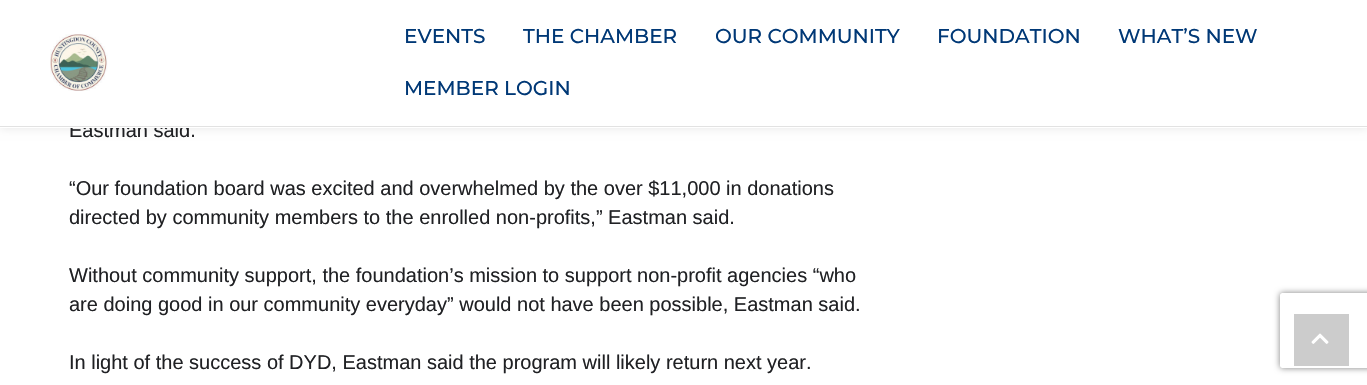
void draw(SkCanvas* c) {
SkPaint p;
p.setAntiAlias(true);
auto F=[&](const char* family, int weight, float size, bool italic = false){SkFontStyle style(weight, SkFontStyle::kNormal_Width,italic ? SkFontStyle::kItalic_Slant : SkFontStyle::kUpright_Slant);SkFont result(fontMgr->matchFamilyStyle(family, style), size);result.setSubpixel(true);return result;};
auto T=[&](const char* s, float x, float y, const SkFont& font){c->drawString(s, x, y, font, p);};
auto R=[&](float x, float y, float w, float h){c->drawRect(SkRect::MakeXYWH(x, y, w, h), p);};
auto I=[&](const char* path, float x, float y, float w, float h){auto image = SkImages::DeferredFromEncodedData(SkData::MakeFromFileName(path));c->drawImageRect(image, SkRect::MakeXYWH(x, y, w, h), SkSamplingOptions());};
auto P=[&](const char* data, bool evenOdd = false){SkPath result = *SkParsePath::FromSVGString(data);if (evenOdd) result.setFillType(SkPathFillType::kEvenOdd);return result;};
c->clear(0xffffffff);
p.setColor(0x1a000000);
p.setMaskFilter(SkMaskFilter::MakeBlur(kNormal_SkBlurStyle, 4.5));
c->drawRect(SkRect::MakeXYWH(0,0,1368,128),p);
p.setMaskFilter(nullptr);
auto f1 = F("Liberation Sans",400,20);
p.setColor(0xff202124);
T("Eastman said.",69,137,f1);
p.setColor(0xffffffff);
R(0,0,1367,128);
p.setColor(0xffe2e2e2);
R(0,126,1367,1);
I("1.png",50,34,58,57);
auto f2 = F("Montserrat",500,20);
p.setColor(0xff003876);
T("EVENTS",404,43,f2);
T("THE CHAMBER",523,43,f2);
T("OUR COMMUNITY",715,43,f2);
T("FOUNDATION",937,43,f2);
T("WHAT’S NEW",1118,43,f2);
T("MEMBER LOGIN",404,95,f2);
p.setColor(0xff202124);
T("“Our foundation board was excited and overwhelmed by the over $11,000 in donations",69,195,f1);
T("directed by community members to the enrolled non-profits,” Eastman said.",69,224,f1);
T("Without community support, the foundation’s mission to support non-profit agencies “who",69,282,f1);
T("are doing good in our community everyday” would not have been possible, Eastman said.",69,311,f1);
T("In light of the success of DYD, Eastman said the program will likely return next year.",69,369,f1);
c->save();
c->clipPath(P("M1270 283h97v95h-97zm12.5 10h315c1.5 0 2.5 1 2.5 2.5v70c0 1.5-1 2.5-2.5 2.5h-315c-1.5 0-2.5-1-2.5-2.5v-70c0-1.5 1-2.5 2.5-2.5z",true),true);
p.setColor(0xff808080);
p.setMaskFilter(SkMaskFilter::MakeBlur(kNormal_SkBlurStyle, 3));
c->drawRoundRect(SkRect::MakeXYWH(1280,293,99,75),2.5,2.5,p);
p.setMaskFilter(nullptr);
c->restore();
p.setColor(0xffcccccc);
R(1294,314,55,52);
I("2.png",1311,333,18,11);
}
